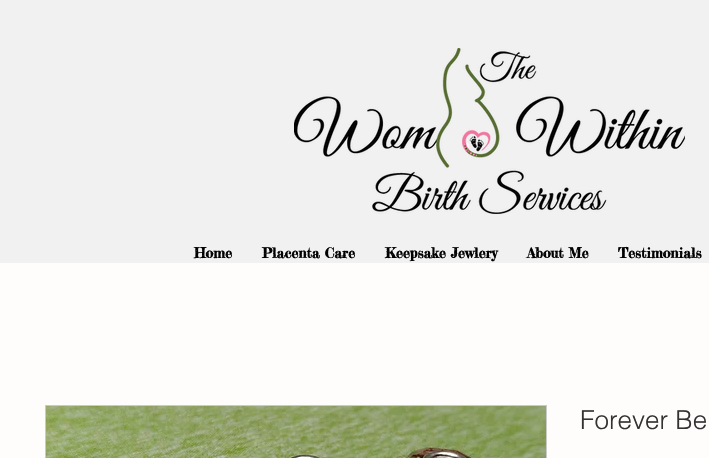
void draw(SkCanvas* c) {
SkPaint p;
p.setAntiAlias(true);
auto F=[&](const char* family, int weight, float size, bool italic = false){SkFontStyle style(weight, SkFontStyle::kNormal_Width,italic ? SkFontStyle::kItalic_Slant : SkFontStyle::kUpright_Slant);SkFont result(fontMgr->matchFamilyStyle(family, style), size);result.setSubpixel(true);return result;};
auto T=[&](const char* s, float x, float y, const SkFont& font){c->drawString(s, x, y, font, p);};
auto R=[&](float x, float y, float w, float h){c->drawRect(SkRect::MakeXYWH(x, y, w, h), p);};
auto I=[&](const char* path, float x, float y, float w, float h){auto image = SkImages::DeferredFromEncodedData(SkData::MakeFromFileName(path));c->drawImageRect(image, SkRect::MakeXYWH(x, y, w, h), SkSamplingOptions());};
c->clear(0xfffffcfc);
p.setColor(0xfff2f1f1);
R(0,0,709,263);
I("1.png",294,48,391,166);
auto f1 = F("Fredericka the Great",700,14);
p.setColor(0xff000000);
T("Home",194,258,f1);
T("Placenta Care",262,258,f1);
T("Keepsake Jewlery",385,258,f1);
T("About Me",527,258,f1);
T("Testimonials",618,258,f1);
p.setStroke(true);
p.setStrokeWidth(1);
p.setColor(0xffccc9c9);
c->drawRect(SkRect::MakeXYWH(45.5,405.5,501,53),p);
I("2.png",46,406,500,52);
auto f2 = F("helvetica",300,26);
p.setStroke(false);
p.setColor(0xff333232);
T("Forever Be",580,429,f2);
}
